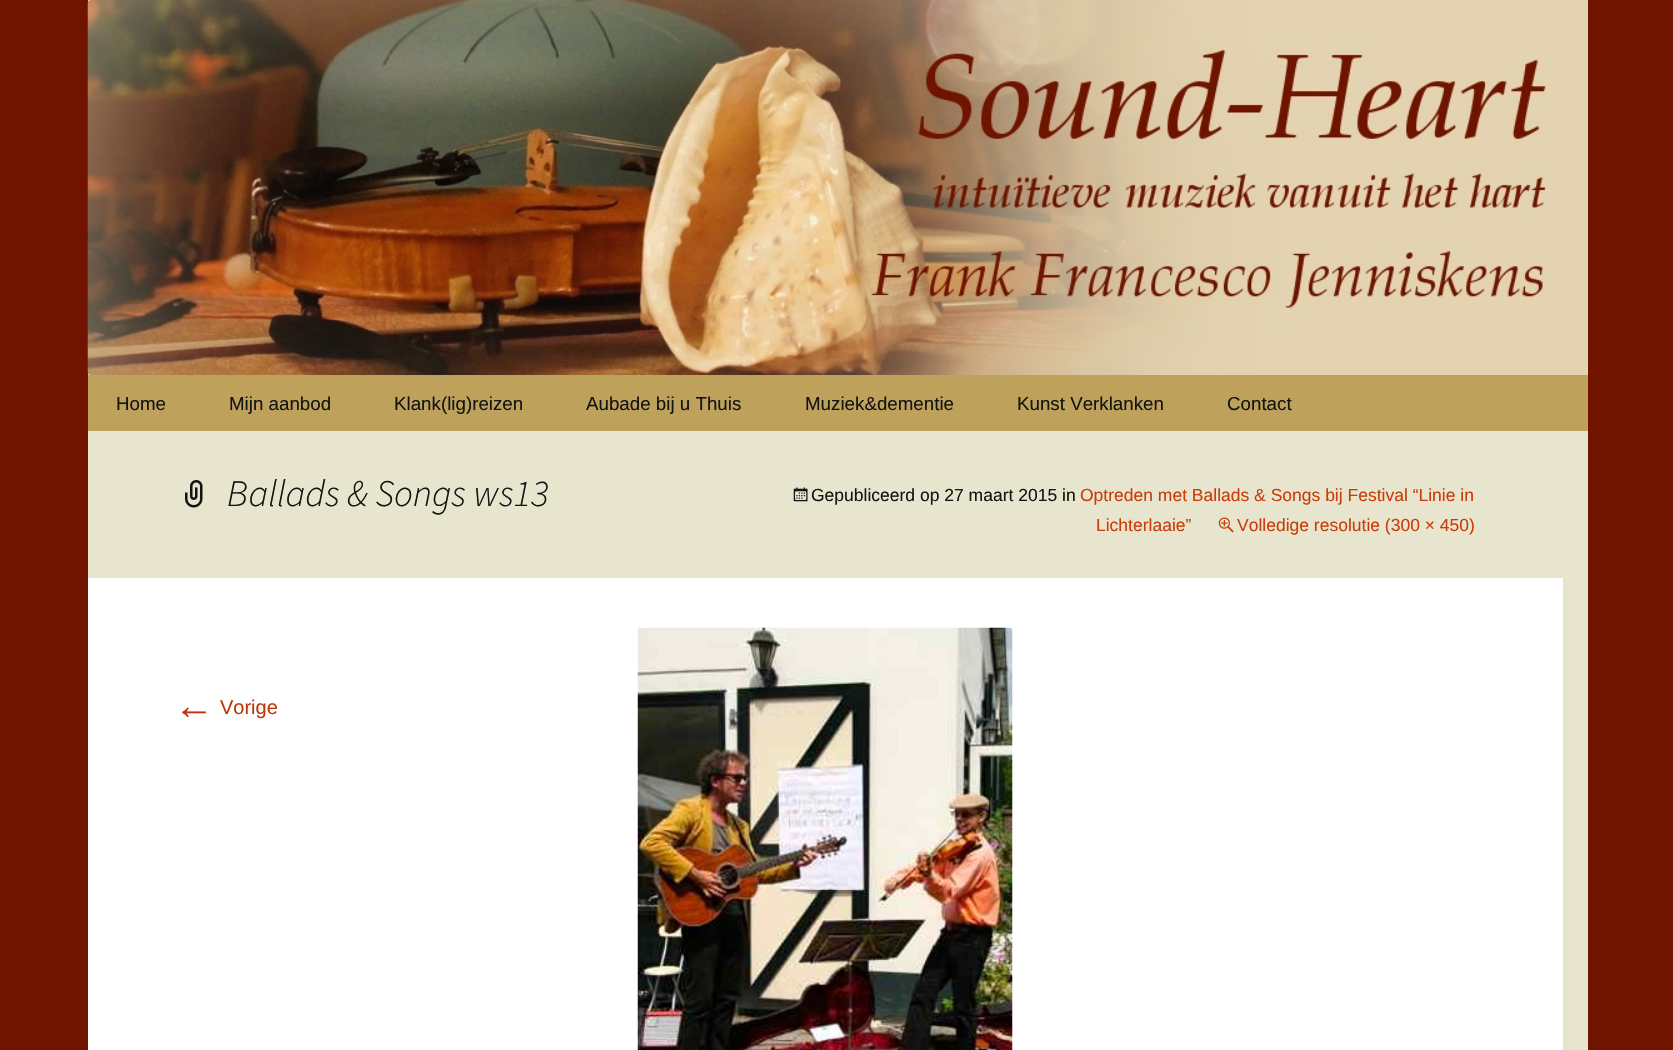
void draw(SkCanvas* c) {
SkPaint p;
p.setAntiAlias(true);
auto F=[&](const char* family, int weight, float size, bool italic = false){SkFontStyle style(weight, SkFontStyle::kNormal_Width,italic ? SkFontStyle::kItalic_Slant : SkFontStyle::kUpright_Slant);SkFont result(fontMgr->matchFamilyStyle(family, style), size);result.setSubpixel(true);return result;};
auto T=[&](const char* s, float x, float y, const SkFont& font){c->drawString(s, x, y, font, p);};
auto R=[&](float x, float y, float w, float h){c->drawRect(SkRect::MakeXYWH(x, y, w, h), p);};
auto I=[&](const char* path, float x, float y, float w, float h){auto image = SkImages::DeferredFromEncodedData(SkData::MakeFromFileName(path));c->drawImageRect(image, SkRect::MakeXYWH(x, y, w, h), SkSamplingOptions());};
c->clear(0xff701400);
p.setColor(0xffe3d3b0);
R(88,0,1500,375);
I("1.png",87,0,1459,375);
p.setColor(0xffbea15b);
R(88,375,1500,56);
auto f1 = F("Liberation Sans",400,18.75);
p.setColor(0xff141412);
T("Home",116,410,f1);
T("Mijn aanbod",229,410,f1);
T("Klank(lig)reizen",394,410,f1);
T("Aubade bij u Thuis",586,410,f1);
T("Muziek&dementie",805,410,f1);
T("Kunst Verklanken",1017,410,f1);
T("Contact",1227,410,f1);
p.setColor(0xffe8e5ce);
R(88,431,1500,619);
I("2.png",185,480,18,28);
auto f2 = F("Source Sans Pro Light",300,37.5,true);
p.setColor(0xff141412);
T("Ballads & Songs ws13",227,506,f2);
I("3.png",793,487,15,15);
auto f3 = F("Liberation Sans",400,17.5);
T("Gepubliceerd op 27 maart 2015 in",811,501,f3);
p.setColor(0xffca3c08);
T("Optreden met Ballads & Songs bij Festival “Linie in",1080,501,f3);
T("Lichterlaaie”",1096,531,f3);
I("4.png",1218,517,16,16);
T("Volledige resolutie (300 × 450)",1237,531,f3);
p.setColor(0xffffffff);
R(88,578,1475,472);
auto f4 = F("Liberation Sans",400,40);
p.setColor(0xffbc360a);
T("←",174,719,f4);
auto f5 = F("Liberation Sans",400,20);
T("Vorige",220,714,f5);
I("5.png",637,627,376,423);
}
